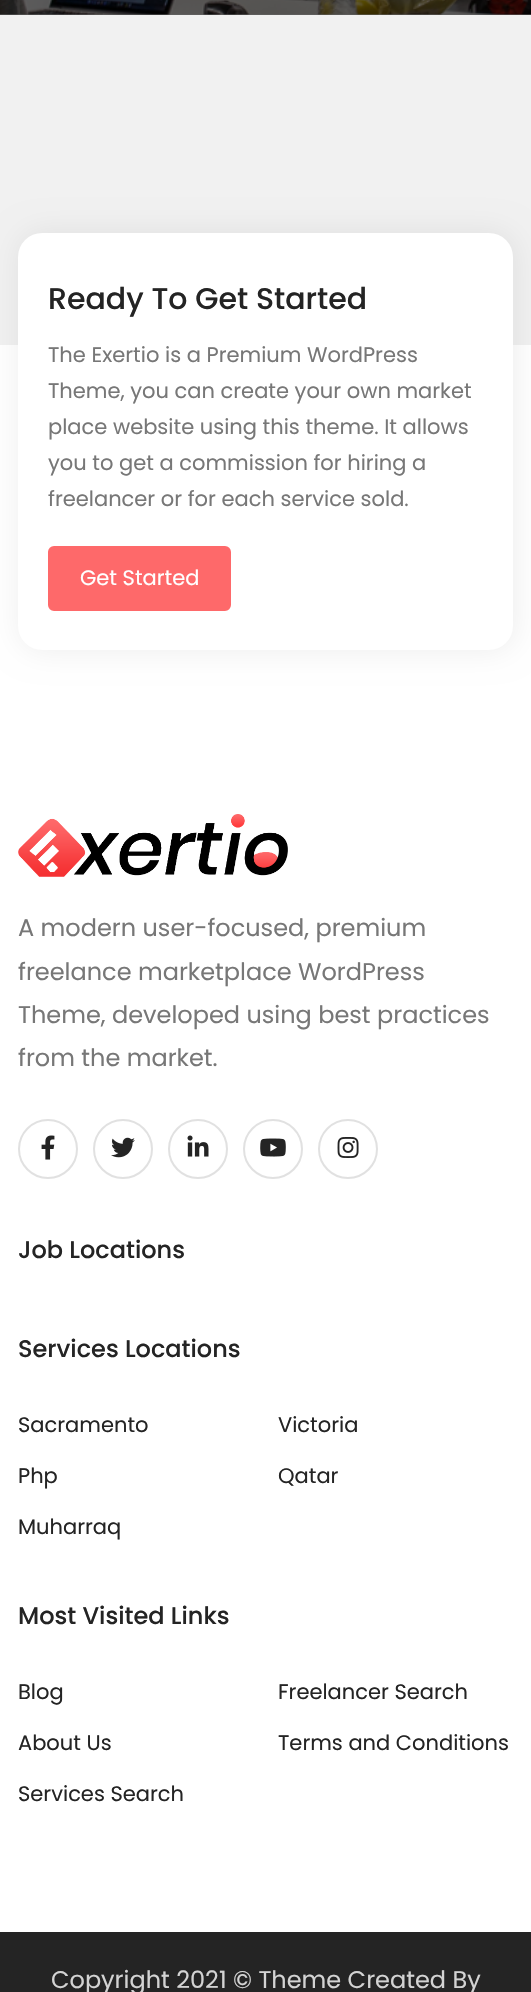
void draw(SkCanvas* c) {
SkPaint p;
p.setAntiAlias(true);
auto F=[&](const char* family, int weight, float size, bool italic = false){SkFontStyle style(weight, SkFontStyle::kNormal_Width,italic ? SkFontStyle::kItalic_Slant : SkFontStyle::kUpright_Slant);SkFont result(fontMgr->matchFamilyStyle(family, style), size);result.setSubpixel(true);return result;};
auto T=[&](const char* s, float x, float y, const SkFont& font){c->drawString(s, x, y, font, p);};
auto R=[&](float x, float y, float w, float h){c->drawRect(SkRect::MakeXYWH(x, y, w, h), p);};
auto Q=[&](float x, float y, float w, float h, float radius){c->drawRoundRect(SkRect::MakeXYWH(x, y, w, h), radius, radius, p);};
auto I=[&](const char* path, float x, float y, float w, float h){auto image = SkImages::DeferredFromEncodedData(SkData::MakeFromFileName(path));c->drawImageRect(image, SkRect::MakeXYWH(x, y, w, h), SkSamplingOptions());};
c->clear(0xffffffff);
p.setColor(0xff666666);
R(0,14,531,1);
I("1.png",0,0,531,15);
p.setColor(0xfff1f1f1);
R(0,15,531,330);
p.setColor(0x12000000);
p.setMaskFilter(SkMaskFilter::MakeBlur(kNormal_SkBlurStyle, 15));
c->drawRoundRect(SkRect::MakeXYWH(20,233,495,417),24,24,p);
p.setMaskFilter(nullptr);
p.setColor(0xffffffff);
Q(18,233,495,417,24);
auto f1 = F("Poppins",500,30);
p.setColor(0xff242424);
T("Ready To Get Started",48,309,f1);
auto f2 = F("Poppins",400,21);
p.setColor(0xff777777);
T("The Exertio is a Premium WordPress",48,362,f2);
T("Theme, you can create your own market",48,398,f2);
T("place website using this theme. It allows",48,434,f2);
T("you to get a commission for hiring a",48,470,f2);
T("freelancer or for each service sold.",48,506,f2);
p.setColor(0xfffe696a);
c->drawRoundRect(SkRect::MakeXYWH(49,547,181,63),5,5,p);
p.setStroke(true);
p.setStrokeWidth(2);
c->drawRoundRect(SkRect::MakeXYWH(49,547,181,63),5,5,p);
p.setStroke(false);
p.setColor(0xffffffff);
T("Get Started",80,585,f2);
I("2.png",18,814,270,63);
auto f3 = F("Poppins",400,24);
p.setColor(0xff777777);
T("A modern user-focused, premium",18,936,f3);
T("freelance marketplace WordPress",18,980,f3);
T("Theme, developed using best practices",18,1023,f3);
T("from the market.",18,1066,f3);
p.setStroke(true);
p.setColor(0xffe1e1e1);
c->drawCircle(48,1149,29,p);
I("3.png",41,1135,14,25);
c->drawCircle(123,1149,29,p);
I("4.png",111,1137,24,21);
c->drawCircle(198,1149,29,p);
I("5.png",187,1135,22,22);
c->drawCircle(273,1149,29,p);
I("6.png",260,1138,26,19);
c->drawCircle(348,1149,29,p);
I("7.png",337,1137,22,21);
auto f4 = F("Poppins",500,24);
p.setStroke(false);
p.setColor(0xff242424);
T("Job Locations",18,1258,f4);
T("Services Locations",18,1357,f4);
T("Sacramento",18,1432,f2);
T("Victoria",278,1432,f2);
T("Php",18,1483,f2);
T("Qatar",278,1483,f2);
T("Muharraq",18,1534,f2);
T("Most Visited Links",18,1624,f4);
T("Blog",18,1699,f2);
T("Freelancer Search",278,1699,f2);
T("About Us",18,1750,f2);
T("Terms and Conditions",278,1750,f2);
T("Services Search",18,1801,f2);
R(0,1932,531,60);
p.setColor(0xffd3d3d3);
T("Copyright 2021 © Theme Created By",51,1988,f3);
}
